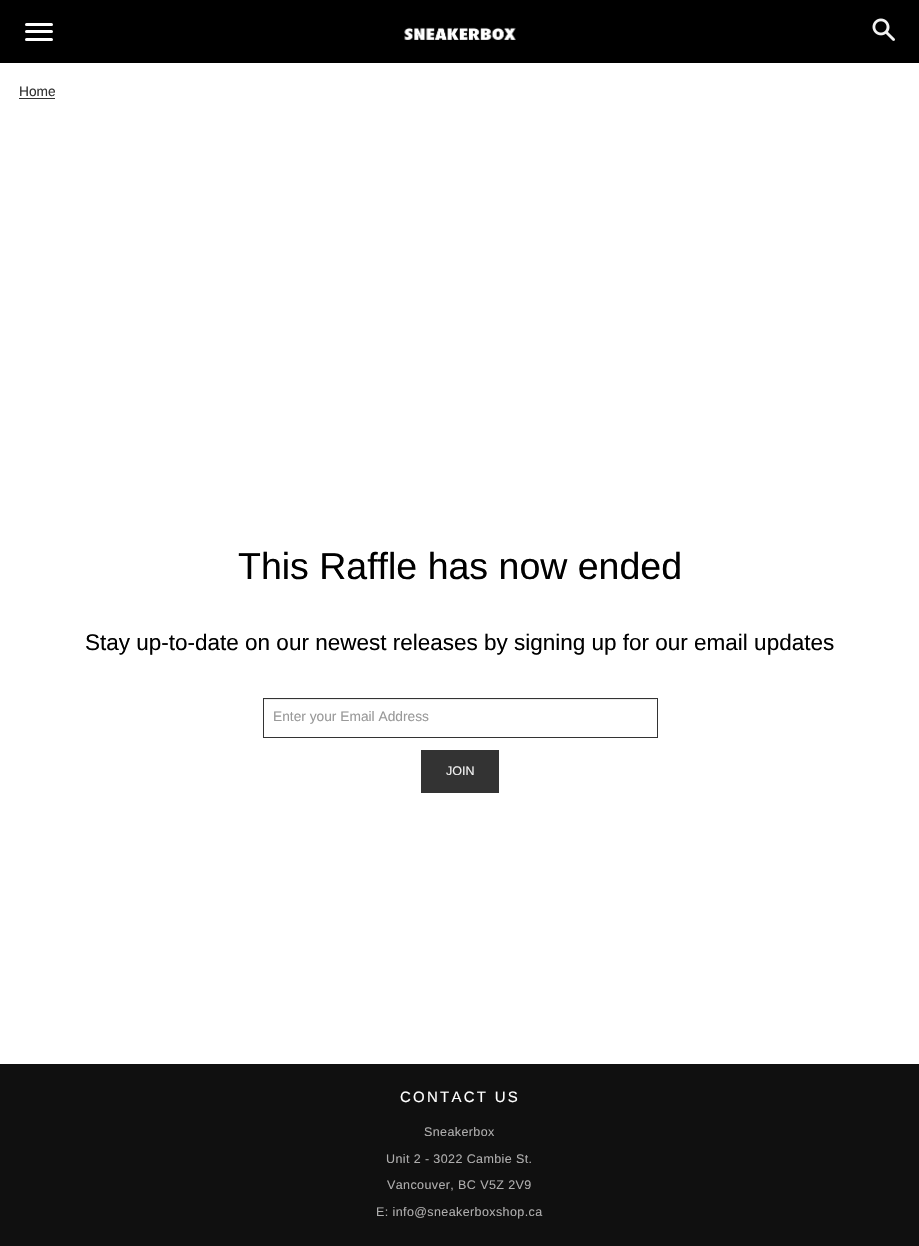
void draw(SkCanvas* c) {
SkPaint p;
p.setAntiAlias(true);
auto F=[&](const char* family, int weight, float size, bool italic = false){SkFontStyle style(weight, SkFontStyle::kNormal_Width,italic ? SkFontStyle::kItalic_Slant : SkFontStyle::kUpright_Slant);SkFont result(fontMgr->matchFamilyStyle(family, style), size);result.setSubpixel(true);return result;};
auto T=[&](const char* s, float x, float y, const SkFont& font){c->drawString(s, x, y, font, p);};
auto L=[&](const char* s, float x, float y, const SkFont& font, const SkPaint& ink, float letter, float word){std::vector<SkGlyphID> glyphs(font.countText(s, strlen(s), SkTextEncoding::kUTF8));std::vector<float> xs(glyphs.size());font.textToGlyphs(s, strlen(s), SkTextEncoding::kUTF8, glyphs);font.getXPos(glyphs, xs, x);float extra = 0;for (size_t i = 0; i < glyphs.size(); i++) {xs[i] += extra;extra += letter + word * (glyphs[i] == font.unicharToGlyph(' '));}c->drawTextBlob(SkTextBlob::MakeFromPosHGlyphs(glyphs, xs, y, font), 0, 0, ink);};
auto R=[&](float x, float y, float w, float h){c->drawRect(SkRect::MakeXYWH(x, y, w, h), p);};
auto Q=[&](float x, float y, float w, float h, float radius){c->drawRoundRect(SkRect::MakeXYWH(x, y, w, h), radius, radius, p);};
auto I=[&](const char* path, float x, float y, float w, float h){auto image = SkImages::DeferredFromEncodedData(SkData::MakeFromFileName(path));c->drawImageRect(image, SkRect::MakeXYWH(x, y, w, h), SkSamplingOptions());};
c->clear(0xffffffff);
p.setColor(0xff000000);
R(0,0,919,63);
p.setColor(0xffffffff);
Q(25,23,28,3,1.5);
Q(25,30,28,3,1.5);
Q(25,38,28,3,1.5);
I("1.png",872,18,23,23);
I("2.png",404,27,112,13);
auto f1 = F("Liberation Sans",400,13.75);
p.setColor(0xff333333);
T("Home",19,96,f1);
R(19,98,36,1);
auto f2 = F("Liberation Sans",400,37.5);
p.setColor(0xff000000);
T("This Raffle has now ended",238,579,f2);
auto f3 = F("Liberation Sans",400,22.5);
T("Stay up-to-date on our newest releases by signing up for our email updates",85,650,f3);
p.setColor(0xffececec);
R(264,699,392,1);
p.setStroke(true);
p.setStrokeWidth(1);
p.setColor(0xff333333);
c->drawRect(SkRect::MakeXYWH(263.5,698.5,394,39),p);
p.setStroke(false);
p.setColor(0xff999999);
T("Enter your Email Address",273,721,f1);
p.setColor(0xff333333);
R(421,750,78,43);
auto f4 = F("Liberation Sans",400,12.5);
p.setColor(0xfff2f2f2);
T("JOIN",446,775,f4);
p.setColor(0xff101010);
R(0,1064,919,182);
auto f5 = F("Liberation Sans",400,15);
p.setColor(0xffffffff);
L("CONTACT US",400,1102,f5,p,2.25,0);
p.setColor(0xffaeadad);
L("Sneakerbox",424,1136,f4,p,.4,0);
L("Unit 2 - 3022 Cambie St.",386,1163,f4,p,.4,0);
L("Vancouver, BC V5Z 2V9",387,1189,f4,p,.4,0);
L("E: info@sneakerboxshop.ca",376,1216,f4,p,.4,0);
}
